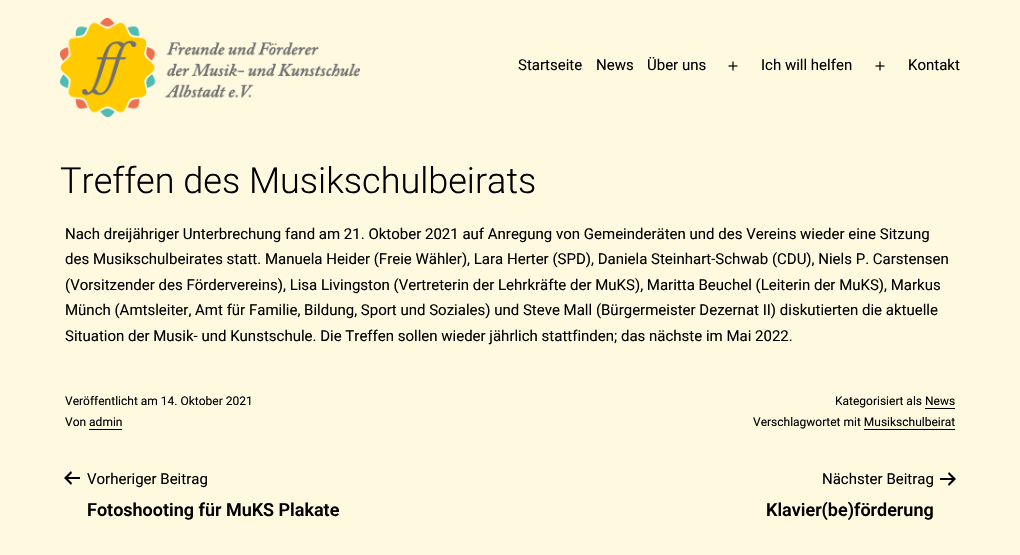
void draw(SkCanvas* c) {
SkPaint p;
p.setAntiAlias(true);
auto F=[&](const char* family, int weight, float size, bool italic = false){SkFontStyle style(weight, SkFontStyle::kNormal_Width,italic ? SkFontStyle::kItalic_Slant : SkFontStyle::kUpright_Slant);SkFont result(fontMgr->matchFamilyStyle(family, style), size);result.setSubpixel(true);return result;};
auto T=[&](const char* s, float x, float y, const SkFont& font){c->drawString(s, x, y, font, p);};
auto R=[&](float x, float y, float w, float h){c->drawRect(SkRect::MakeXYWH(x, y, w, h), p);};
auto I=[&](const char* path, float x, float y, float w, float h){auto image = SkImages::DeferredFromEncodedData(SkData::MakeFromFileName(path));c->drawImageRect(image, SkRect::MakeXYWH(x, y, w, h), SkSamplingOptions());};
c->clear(0xfffff9e0);
I("1.png",60,18,300,99);
auto f1 = F("Roboto",400,15);
p.setColor(0xff000000);
T("Startseite",518,70,f1);
T("News",596,70,f1);
T("Über uns",647,70,f1);
I("2.png",728,61,10,10);
T("Ich will helfen",761,70,f1);
I("2.png",875,61,10,10);
T("Kontakt",908,70,f1);
auto f2 = F("Roboto",300,36);
T("Treffen des Musikschulbeirats",60,193,f2);
T("Nach dreijähriger Unterbrechung fand am 21. Oktober 2021 auf Anregung von Gemeinderäten und des Vereins wieder eine Sitzung",65,239,f1);
T("des Musikschulbeirates statt. Manuela Heider (Freie Wähler), Lara Herter (SPD), Daniela Steinhart-Schwab (CDU), Niels P. Carstensen",65,264,f1);
T("(Vorsitzender des Fördervereins), Lisa Livingston (Vertreterin der Lehrkräfte der MuKS), Maritta Beuchel (Leiterin der MuKS), Markus",65,290,f1);
T("Münch (Amtsleiter, Amt für Familie, Bildung, Sport und Soziales) und Steve Mall (Bürgermeister Dezernat II) diskutierten die aktuelle",65,315,f1);
T("Situation der Musik- und Kunstschule. Die Treffen sollen wieder jährlich stattfinden; das nächste im Mai 2022.",65,341,f1);
auto f3 = F("Roboto",400,12);
T("Veröffentlicht am 14. Oktober 2021",65,405,f3);
T("Von admin",65,426,f3);
R(89,429,33,1);
T("Kategorisiert als News",835,405,f3);
R(925,408,30,1);
T("Verschlagwortet mit Musikschulbeirat",753,426,f3);
R(864,429,91,1);
I("3.png",64,471,16,14);
T("Vorheriger Beitrag",87,484,f1);
auto f4 = F("Roboto",600,18);
T("Fotoshooting für MuKS Plakate",87,516,f4);
T("Nächster Beitrag",822,484,f1);
I("4.png",940,472,16,14);
T("Klavier(be)förderung",766,516,f4);
}
